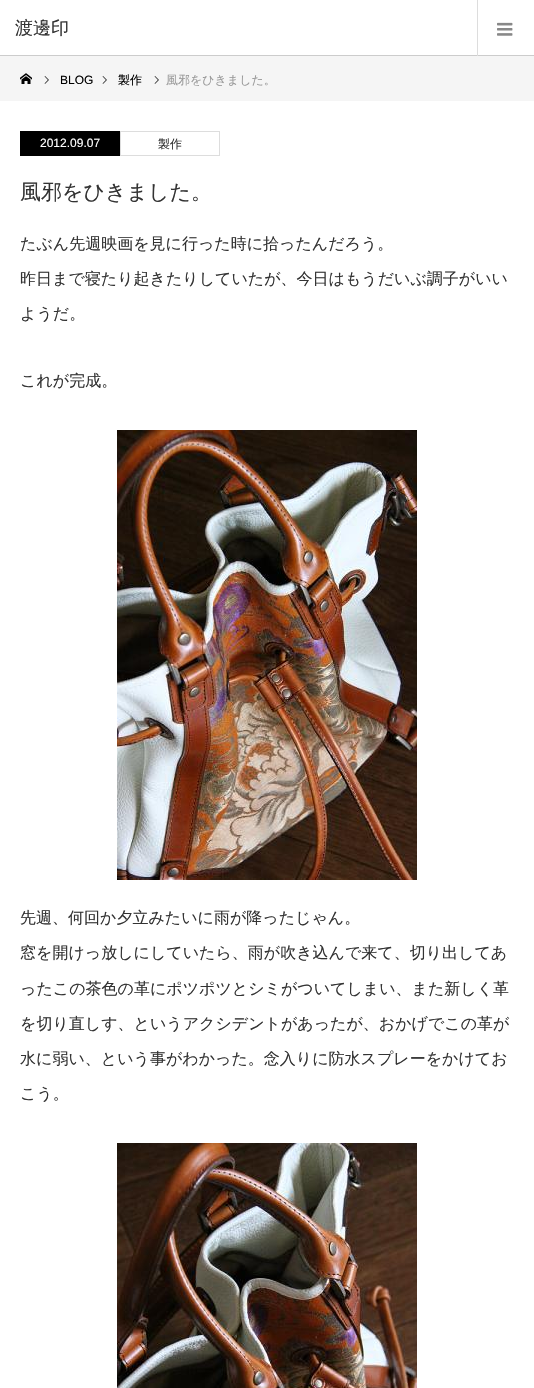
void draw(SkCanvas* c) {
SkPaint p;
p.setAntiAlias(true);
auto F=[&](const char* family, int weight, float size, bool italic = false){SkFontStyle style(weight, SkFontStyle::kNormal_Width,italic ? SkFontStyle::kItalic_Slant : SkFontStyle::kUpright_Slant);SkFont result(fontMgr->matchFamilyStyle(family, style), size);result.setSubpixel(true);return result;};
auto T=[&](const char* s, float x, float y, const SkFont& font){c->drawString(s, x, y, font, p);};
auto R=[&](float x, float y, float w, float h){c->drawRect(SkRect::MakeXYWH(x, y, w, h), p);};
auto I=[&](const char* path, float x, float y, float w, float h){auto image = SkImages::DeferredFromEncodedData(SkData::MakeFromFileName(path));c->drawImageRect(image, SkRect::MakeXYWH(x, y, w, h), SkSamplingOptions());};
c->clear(0xffffffff);
p.setColor(0xffcccccc);
R(0,55,534,1);
auto f1 = F("WenQuanYi Zen Hei",500,18);
p.setColor(0xff333333);
T("渡邊印",15,34,f1);
p.setColor(0xffdddddd);
R(477,0,1,56);
I("1.png",497,22,16,14);
p.setColor(0xfff5f5f5);
R(0,56,534,45);
I("2.png",20,73,12,11);
I("3.png",44,76,5,8);
auto f2 = F("Liberation Sans",400,12);
p.setColor(0xff000000);
T("BLOG",60,84,f2);
I("3.png",102,76,5,8);
auto f3 = F("WenQuanYi Zen Hei",500,12);
T("製作",118,84,f3);
I("3.png",154,76,5,8);
p.setColor(0xff999999);
T("風邪をひきました。",166,84,f3);
p.setColor(0xff000000);
R(20,131,100,25);
p.setColor(0xffffffff);
T("2012.09.07",40,147,f2);
p.setStroke(true);
p.setStrokeWidth(1);
p.setColor(0xffdddddd);
c->drawRect(SkRect::MakeXYWH(120.5,131.5,99,24),p);
p.setStroke(false);
p.setColor(0xff333333);
T("製作",158,148,f3);
auto f4 = F("WenQuanYi Zen Hei",500,21);
T("風邪をひきました。",20,199,f4);
auto f5 = F("WenQuanYi Zen Hei",500,16);
T("たぶん先週映画を見に行った時に拾ったんだろう。",20,249,f5);
T("昨日まで寝たり起きたりしていたが、今日はもうだいぶ調子がいい",20,284,f5);
T("ようだ。",20,319,f5);
T("これが完成。",20,386,f5);
I("4.png",117,430,300,450);
T("先週、何回か夕立みたいに雨が降ったじゃん。",20,923,f5);
T("窓を開けっ放しにしていたら、雨が吹き込んで来て、切り出してあ",20,958,f5);
T("ったこの茶色の革にポツポツとシミがついてしまい、また新しく革",20,994,f5);
T("を切り直しす、というアクシデントがあったが、おかげでこの革が",20,1029,f5);
T("水に弱い、という事がわかった。念入りに防水スプレーをかけてお",20,1064,f5);
T("こう。",20,1099,f5);
I("5.png",117,1143,300,245);
}
